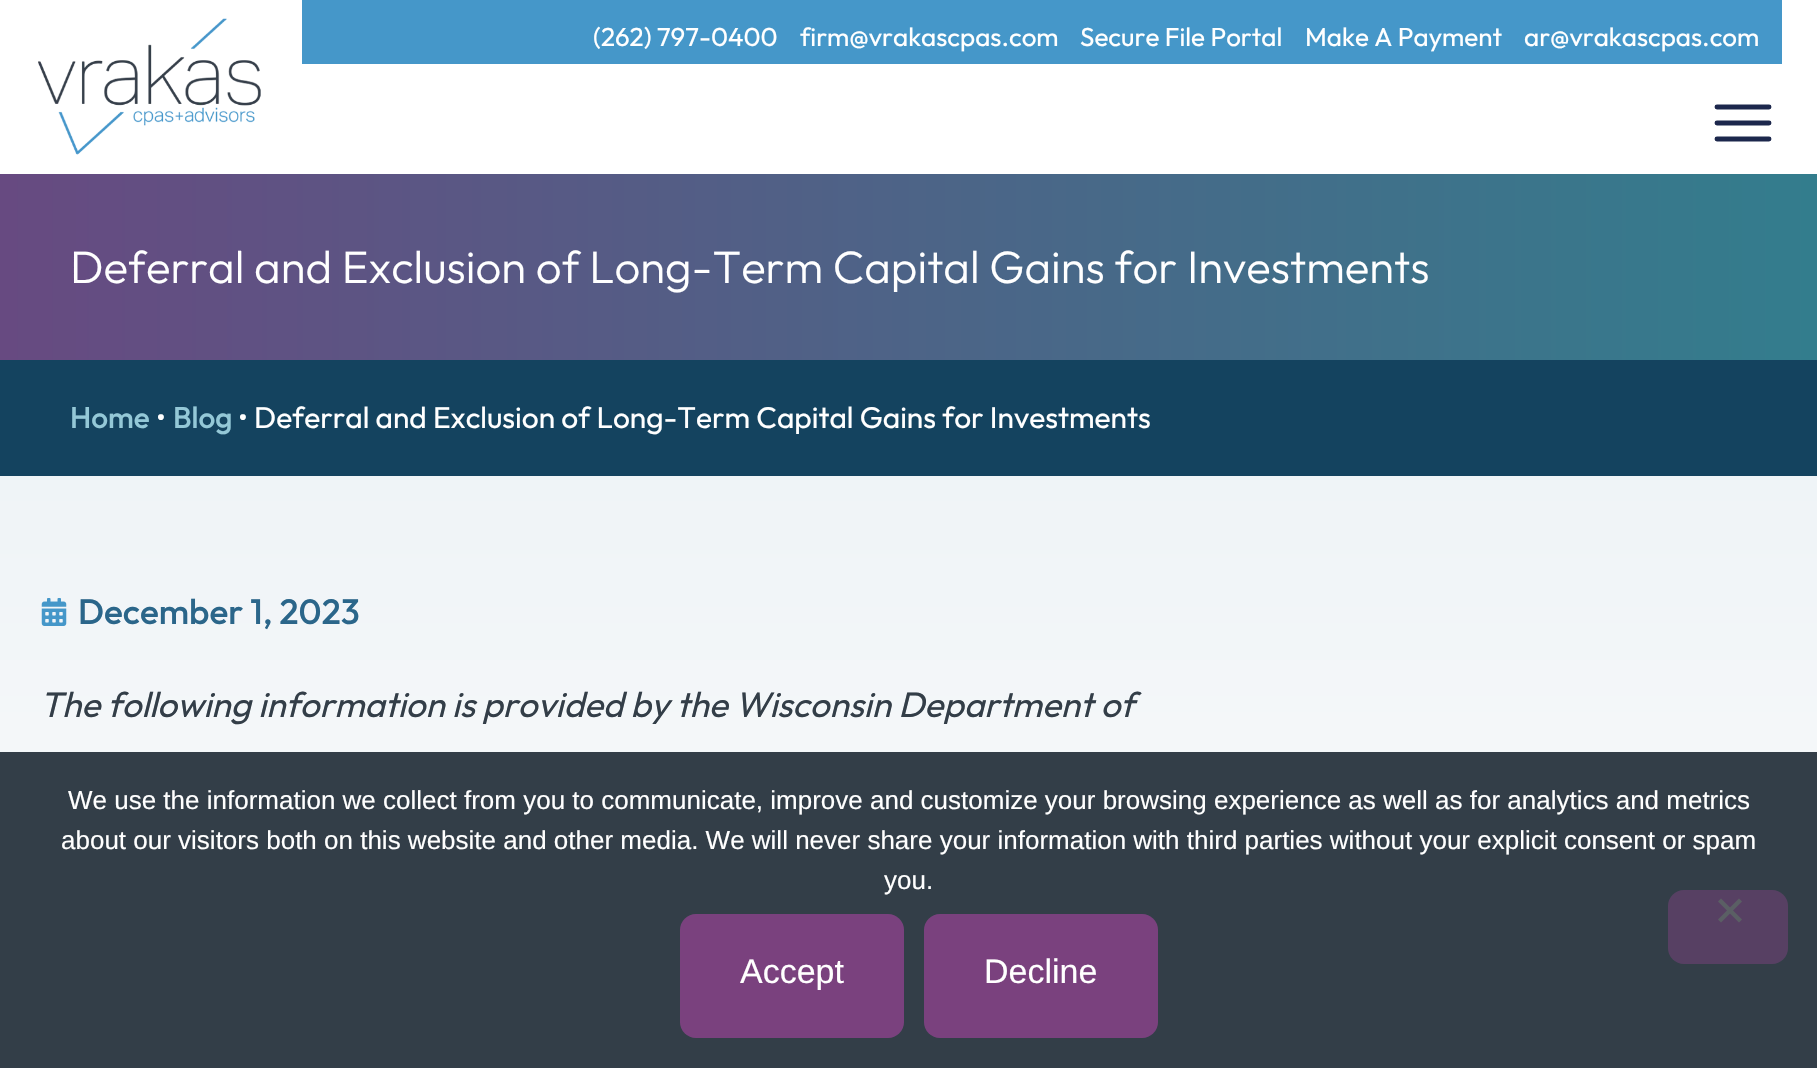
void draw(SkCanvas* c) {
SkPaint p;
p.setAntiAlias(true);
auto F=[&](const char* family, int weight, float size, bool italic = false){SkFontStyle style(weight, SkFontStyle::kNormal_Width,italic ? SkFontStyle::kItalic_Slant : SkFontStyle::kUpright_Slant);SkFont result(fontMgr->matchFamilyStyle(family, style), size);result.setSubpixel(true);return result;};
auto T=[&](const char* s, float x, float y, const SkFont& font){c->drawString(s, x, y, font, p);};
auto R=[&](float x, float y, float w, float h){c->drawRect(SkRect::MakeXYWH(x, y, w, h), p);};
auto Q=[&](float x, float y, float w, float h, float radius){c->drawRoundRect(SkRect::MakeXYWH(x, y, w, h), radius, radius, p);};
auto I=[&](const char* path, float x, float y, float w, float h){auto image = SkImages::DeferredFromEncodedData(SkData::MakeFromFileName(path));c->drawImageRect(image, SkRect::MakeXYWH(x, y, w, h), SkSamplingOptions());};
auto P=[&](const char* data, bool evenOdd = false){SkPath result = *SkParsePath::FromSVGString(data);if (evenOdd) result.setFillType(SkPathFillType::kEvenOdd);return result;};
c->clear(0xffffffff);
{
const SkColor colors[] = {0xffe6edf2,0xffffffff};
const float stops[] = {0,.33};
const SkPoint ends[] = {{909,0}, {909,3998}};
p.setShader(SkGradientShader::MakeLinear(ends, colors, stops, 2, SkTileMode::kClamp));
p.setAlpha(255);
}
R(0,476,1817,276);
I("1.png",38,18,223,137);
p.setShader(nullptr);
p.setColor(0xff4597c9);
R(302,0,1480,64);
auto f1 = F("Outfit",400,26);
p.setColor(0xffffffff);
T("(262) 797-0400",593,46,f1);
T("firm@vrakascpas.com",800,46,f1);
T("Secure File Portal",1080,46,f1);
T("Make A Payment",1305,46,f1);
T("ar@vrakascpas.com",1524,46,f1);
p.setStroke(true);
p.setStrokeWidth(4.9);
p.setStrokeCap(SkPaint::kRound_Cap);
p.setColor(0xff1c274c);
c->drawPath(P("M1769 107h-52m52 16h-52m52 16h-52"),p);
p.setStroke(false);
{
const SkColor colors[] = {0xff674a81,0xff337d8d};
const float stops[] = {0,1};
const SkPoint ends[] = {{0,267}, {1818,267}};
p.setShader(SkGradientShader::MakeLinear(ends, colors, stops, 2, SkTileMode::kClamp));
p.setAlpha(255);
}
R(0,174,1817,186);
auto f2 = F("Outfit",300,45.45);
p.setShader(nullptr);
p.setColor(0xffffffff);
T("Deferral and Exclusion of Long-Term Capital Gains for Investments",70,283,f2);
p.setColor(0xff14435f);
R(0,360,1817,116);
auto f3 = F("Outfit",500,29.9);
p.setColor(0xff94c8d7);
T("Home",70,428,f3);
auto f4 = F("Outfit",400,29.9);
p.setColor(0xffffffff);
T("•",156,428,f4);
p.setColor(0xff94c8d7);
T("Blog",173,428,f3);
p.setColor(0xffffffff);
T("• Deferral and Exclusion of Long-Term Capital Gains for Investments",238,428,f4);
I("2.png",41,598,26,28);
auto f5 = F("Outfit",500,35.2);
p.setColor(0xff2b668a);
T("December 1, 2023",78,624,f5);
auto f6 = F("Outfit",400,35.2,true);
p.setColor(0xff333e48);
T("The following information is provided by the Wisconsin Department of",40,717,f6);
R(0,752,1817,316);
auto f7 = F("Liberation Sans",400,26);
p.setColor(0xffffffff);
T("We use the information we collect from you to communicate, improve and customize your browsing experience as well as for analytics and metrics",68,809,f7);
T("about our visitors both on this website and other media. We will never share your information with third parties without your explicit consent or spam",61,849,f7);
T("you.",884,889,f7);
p.setColor(0xff574063);
Q(1668,890,120,74,16);
p.setColor(0xff5a5f64);
c->drawPath(P("M1739 898.5l3 3l-21 21l-3-3z"),p);
c->drawPath(P("M1718 901.5l3-3l21 21l-3 3z"),p);
p.setColor(0xff7a417e);
Q(680,914,224,124,16);
auto f8 = F("Liberation Sans",400,34);
p.setColor(0xffffffff);
T("Accept",740,983,f8);
p.setColor(0xff7a417e);
Q(924,914,234,124,16);
p.setColor(0xffffffff);
T("Decline",984,983,f8);
}
